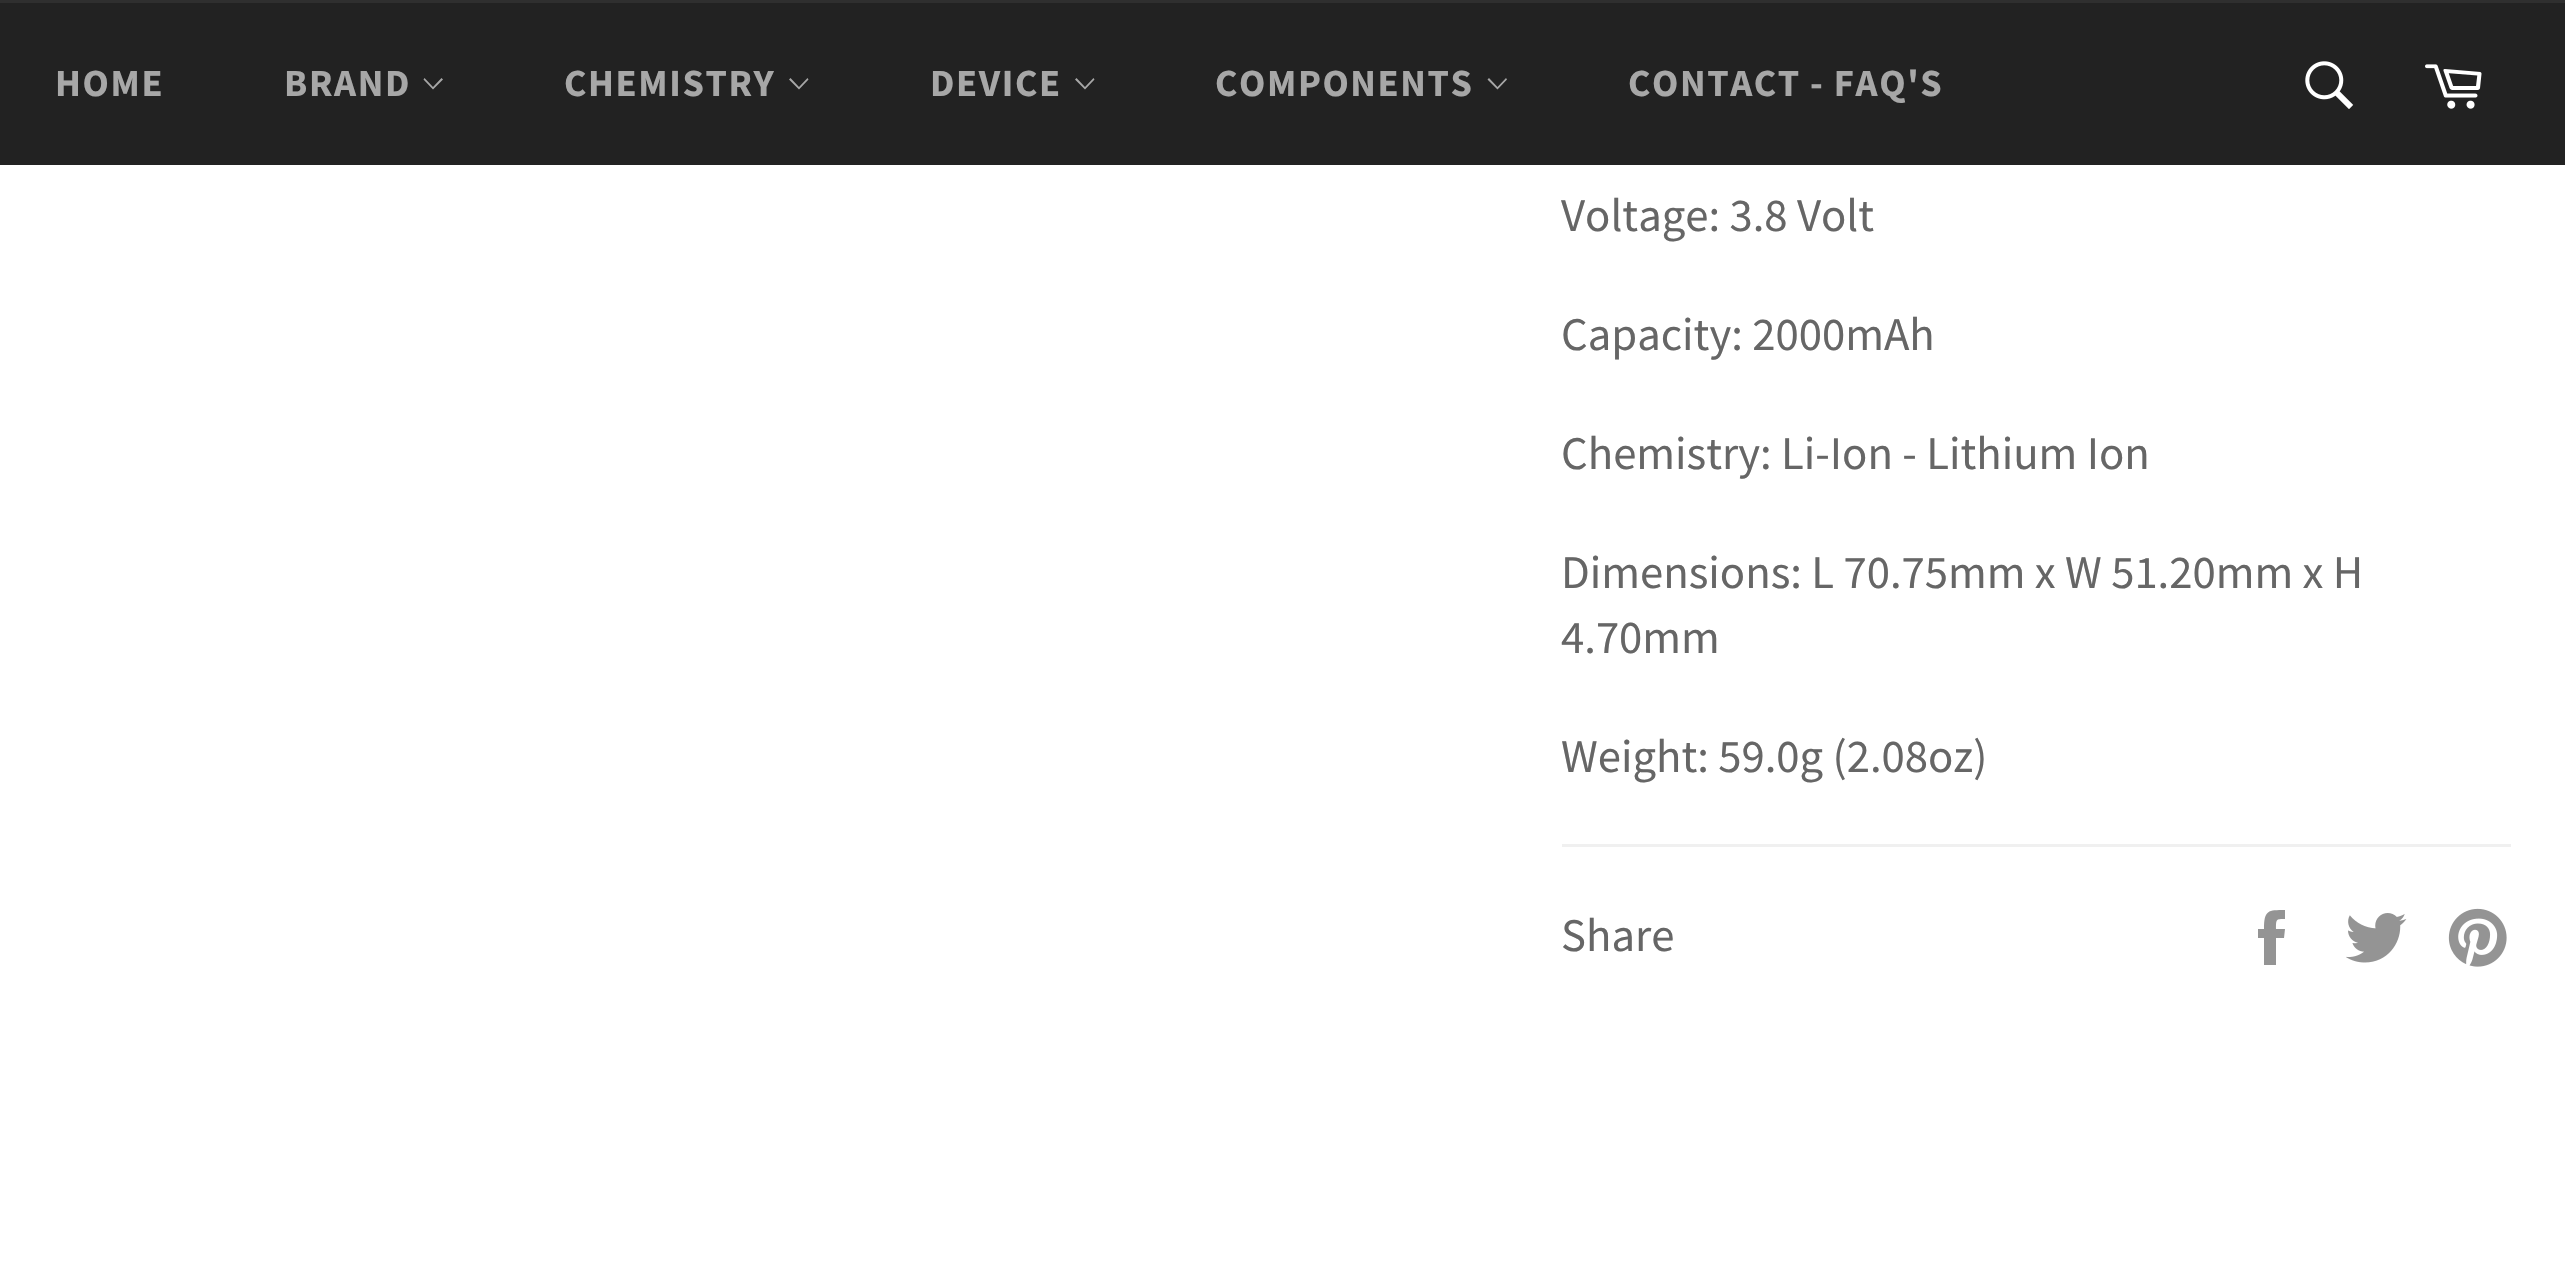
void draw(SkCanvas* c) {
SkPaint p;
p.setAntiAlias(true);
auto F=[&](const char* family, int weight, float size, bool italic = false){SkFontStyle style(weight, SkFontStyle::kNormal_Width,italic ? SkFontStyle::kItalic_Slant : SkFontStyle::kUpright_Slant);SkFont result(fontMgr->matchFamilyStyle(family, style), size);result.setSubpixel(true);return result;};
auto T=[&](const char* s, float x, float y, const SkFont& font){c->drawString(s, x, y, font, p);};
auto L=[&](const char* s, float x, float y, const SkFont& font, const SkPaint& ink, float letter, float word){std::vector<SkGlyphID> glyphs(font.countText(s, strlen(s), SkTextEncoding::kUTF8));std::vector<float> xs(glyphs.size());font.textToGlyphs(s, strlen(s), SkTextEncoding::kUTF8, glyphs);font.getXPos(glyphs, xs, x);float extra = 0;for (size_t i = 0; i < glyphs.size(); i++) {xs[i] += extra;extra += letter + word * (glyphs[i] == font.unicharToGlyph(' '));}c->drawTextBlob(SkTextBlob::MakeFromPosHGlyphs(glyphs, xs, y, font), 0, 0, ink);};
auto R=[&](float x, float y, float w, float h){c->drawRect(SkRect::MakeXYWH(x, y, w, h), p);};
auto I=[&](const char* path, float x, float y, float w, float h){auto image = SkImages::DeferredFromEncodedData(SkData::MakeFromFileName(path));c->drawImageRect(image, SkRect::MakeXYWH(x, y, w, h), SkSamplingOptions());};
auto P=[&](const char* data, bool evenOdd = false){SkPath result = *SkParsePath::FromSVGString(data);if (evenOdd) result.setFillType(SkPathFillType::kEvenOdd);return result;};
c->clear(0xffffffff);
p.setColor(0xff222222);
R(0,3,2565,162);
p.setColor(0xff2f2f2f);
R(0,0,2565,3);
auto f1 = F("Source Sans Pro",700,38.5);
p.setColor(0xffa7a7a7);
L("HOME",55,96,f1,p,1.6,0);
L("BRAND",284,96,f1,p,1.6,0);
c->drawPath(P("M441.5 78l1.5 1.5l-10 10l-9.5-10l1-1.5l8.5 9z"),p);
L("CHEMISTRY",564,96,f1,p,1.6,0);
c->drawPath(P("M807.5 78l1 1.5l-9.5 10l-10-10l1.5-1.5l8.5 9z"),p);
L("DEVICE",930,96,f1,p,1.6,0);
c->drawPath(P("M1093.5 78l1 1.5l-9.5 10l-10-10l1.5-1.5l8.5 9z"),p);
L("COMPONENTS",1215,96,f1,p,1.6,0);
c->drawPath(P("M1506 78l1 1.5l-9.5 10l-10-10l1.5-1.5l8.5 9z"),p);
L("CONTACT - FAQ'S",1628,96,f1,p,1.6,0);
I("1.png",2305,61,49,48);
I("2.png",2425,64,57,45);
auto f2 = F("Source Sans Pro",400,46.75);
p.setColor(0xff666666);
T("Voltage: 3.8 Volt",1561,231,f2);
T("Capacity: 2000mAh",1561,350,f2);
T("Chemistry: Li-Ion - Lithium Ion",1561,469,f2);
T("Dimensions: L 70.75mm x W 51.20mm x H",1561,588,f2);
T("4.70mm",1561,653,f2);
T("Weight: 59.0g (2.08oz)",1561,772,f2);
p.setColor(0xfff0f0f0);
R(1562,844,949,3);
p.setColor(0xff666666);
T("Share",1561,951,f2);
p.setColor(0xff949494);
c->drawPath(P("M2276 929c0-10 0-10 9-10v-9c-17 0-21 0-21 19h-6v9h6v27h12v-27h8l1-9z"),p);
I("3.png",2346,913,61,50);
I("4.png",2448,908,59,59);
}
